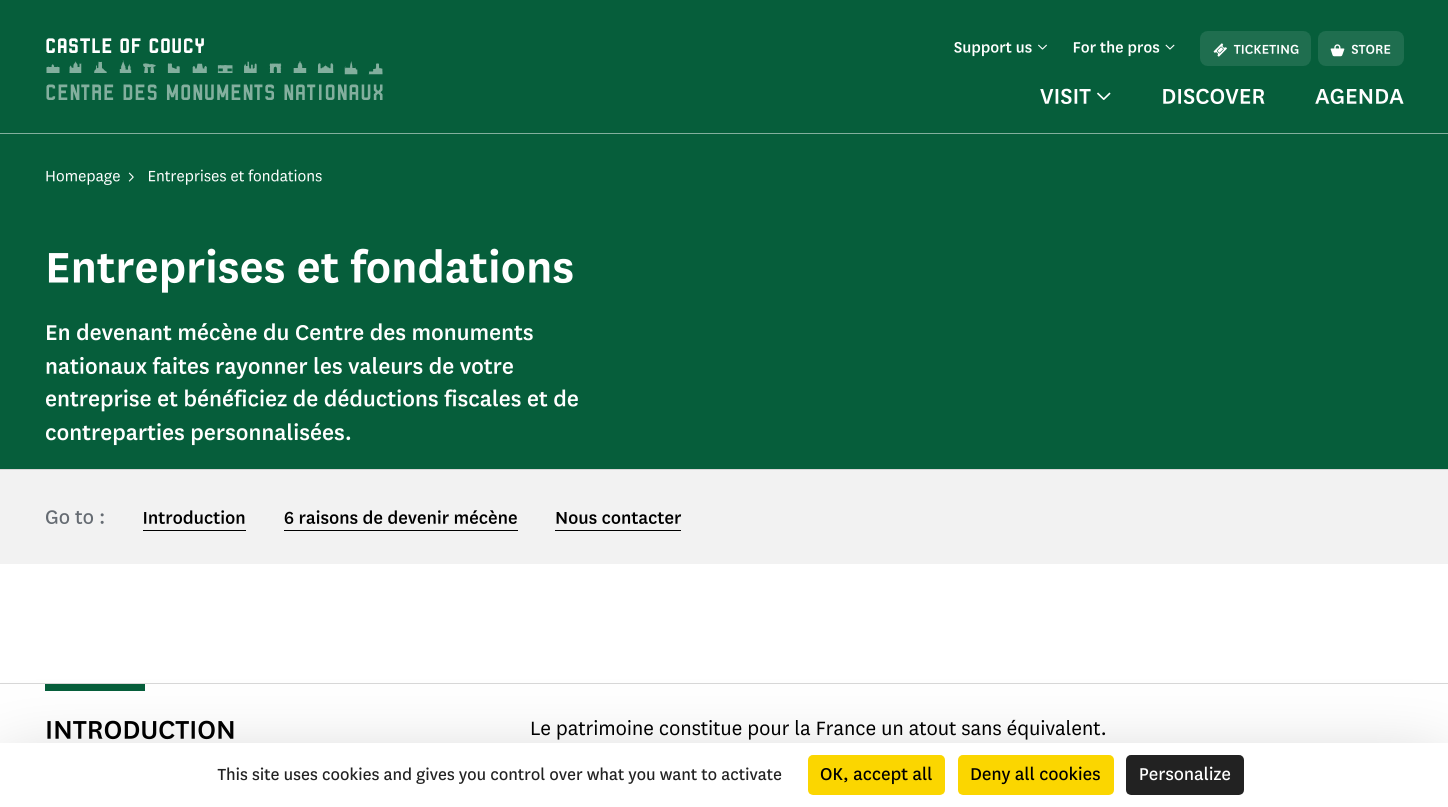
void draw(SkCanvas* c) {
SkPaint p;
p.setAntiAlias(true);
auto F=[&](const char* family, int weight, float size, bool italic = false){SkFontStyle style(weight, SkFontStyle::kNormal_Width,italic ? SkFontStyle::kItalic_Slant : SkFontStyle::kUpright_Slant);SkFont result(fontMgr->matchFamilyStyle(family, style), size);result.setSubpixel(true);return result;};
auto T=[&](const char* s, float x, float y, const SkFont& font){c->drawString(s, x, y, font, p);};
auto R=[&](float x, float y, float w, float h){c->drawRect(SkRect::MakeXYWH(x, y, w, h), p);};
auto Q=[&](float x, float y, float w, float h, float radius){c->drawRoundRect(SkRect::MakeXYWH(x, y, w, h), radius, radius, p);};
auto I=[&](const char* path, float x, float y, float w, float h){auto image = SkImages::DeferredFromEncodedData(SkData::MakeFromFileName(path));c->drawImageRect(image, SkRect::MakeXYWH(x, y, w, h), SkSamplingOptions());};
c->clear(0xffffffff);
p.setColor(0xff065e3b);
R(0,0,1448,133);
auto f1 = F("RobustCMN",300,22);
p.setColor(0xffffffff);
T("CASTLE OF COUCY",45,53,f1);
I("1.png",46,60,337,40);
I("2.png",954,42,78,15);
I("3.png",1038,44,9,6);
I("4.png",1073,40,87,17);
I("5.png",1165,44,10,6);
p.setColor(0xff1f6e4f);
Q(1200,31,111,35,8);
I("6.png",1213,43,14,14);
I("7.png",1233,44,66,10);
Q(1318,31,86,35,8);
I("8.png",1330,44,15,13);
I("9.png",1351,44,40,10);
I("10.png",1040,88,51,17);
I("11.png",1097,92,14,8);
I("12.png",1163,88,102,17);
I("13.png",1315,88,89,17);
p.setColor(0xff065e3b);
R(0,134,1448,335);
p.setColor(0xff83af9d);
R(0,133,1448,1);
I("14.png",46,170,74,15);
I("15.png",128,172,6,10);
I("16.png",149,169,173,16);
I("17.png",48,248,525,45);
I("18.png",47,323,486,18);
I("19.png",46,356,467,23);
I("20.png",46,389,532,23);
I("21.png",46,423,305,23);
p.setColor(0xfff2f2f2);
R(0,470,1448,94);
p.setColor(0xffd8d8d8);
R(0,469,1448,1);
I("22.png",46,510,58,14);
I("23.png",144,510,101,14);
p.setColor(0xff000000);
R(143,530,103,1);
I("24.png",284,510,233,14);
R(284,530,234,1);
I("25.png",556,512,126,12);
R(555,530,126,1);
p.setColor(0xffd8d8d8);
R(0,683,1448,1);
p.setColor(0xff065e3b);
R(45,684,100,7);
I("26.png",47,720,187,20);
I("27.png",531,719,575,21);
p.setColor(0x40000000);
p.setMaskFilter(SkMaskFilter::MakeBlur(kNormal_SkBlurStyle, 37.5));
c->drawRect(SkRect::MakeXYWH(0,768,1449,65),p);
p.setMaskFilter(nullptr);
p.setColor(0xffffffff);
R(0,743,1448,64);
I("28.png",217,767,565,17);
p.setColor(0xfffbd600);
Q(808,755,137,40,5);
I("29.png",820,766,112,19);
Q(958,755,156,40,5);
I("30.png",971,766,129,19);
p.setColor(0xff222222);
Q(1126,755,118,40,5);
I("31.png",1140,766,91,15);
}
